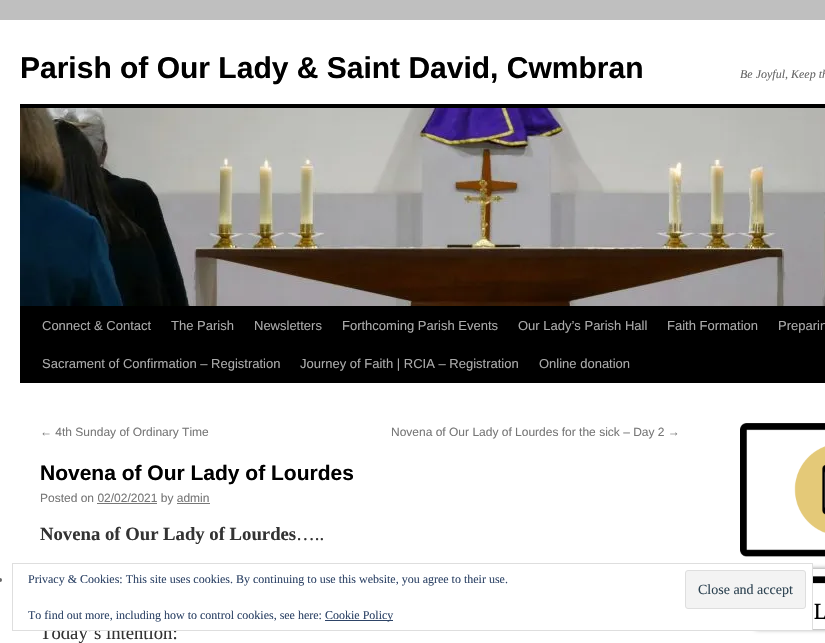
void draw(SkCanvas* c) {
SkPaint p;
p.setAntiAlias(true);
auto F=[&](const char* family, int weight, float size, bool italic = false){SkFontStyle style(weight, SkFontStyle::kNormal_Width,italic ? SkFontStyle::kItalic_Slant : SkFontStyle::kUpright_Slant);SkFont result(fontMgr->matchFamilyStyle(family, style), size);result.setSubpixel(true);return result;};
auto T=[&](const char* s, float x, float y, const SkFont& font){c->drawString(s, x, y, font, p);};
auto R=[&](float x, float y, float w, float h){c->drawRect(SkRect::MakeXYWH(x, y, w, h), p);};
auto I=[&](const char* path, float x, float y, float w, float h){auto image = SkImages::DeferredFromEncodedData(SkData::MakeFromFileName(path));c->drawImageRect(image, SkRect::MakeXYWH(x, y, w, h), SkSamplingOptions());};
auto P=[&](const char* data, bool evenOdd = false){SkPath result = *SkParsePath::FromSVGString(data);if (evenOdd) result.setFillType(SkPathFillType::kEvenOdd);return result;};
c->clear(0xffbfbfbf);
p.setColor(0xffffffff);
R(0,20,825,623);
auto f1 = F("Liberation Sans",700,30);
p.setColor(0xff000000);
T("Parish of Our Lady & Saint David, Cwmbran",20,78,f1);
auto f2 = F("Liberation Serif",400,12,true);
p.setColor(0xff666666);
T("Be Joyful, Keep th",740,78,f2);
p.setColor(0xff000000);
R(20,104,805,4);
R(20,306,805,77);
I("1.png",20,108,805,198);
auto f3 = F("Liberation Sans",400,13);
p.setColor(0xffaaaaaa);
T("Connect & Contact",42,330,f3);
T("The Parish",171,330,f3);
T("Newsletters",254,330,f3);
T("Forthcoming Parish Events",342,330,f3);
T("Our Lady’s Parish Hall",518,330,f3);
T("Faith Formation",667,330,f3);
T("Preparin",778,330,f3);
T("Sacrament of Confirmation – Registration",42,368,f3);
T("Journey of Faith | RCIA – Registration",300,368,f3);
T("Online donation",539,368,f3);
auto f4 = F("Liberation Sans",400,12);
p.setColor(0xff777777);
T("← 4th Sunday of Ordinary Time",40,436,f4);
T("Novena of Our Lady of Lourdes for the sick – Day 2 →",391,436,f4);
auto f5 = F("Liberation Sans",700,21);
p.setColor(0xff000000);
T("Novena of Our Lady of Lourdes",40,480,f5);
p.setColor(0xff777777);
T("Posted on 02/02/2021 by admin",40,502,f4);
R(97,503,60,1);
R(177,503,33,1);
auto f6 = F("Liberation Serif",700,18.7);
p.setColor(0xff333333);
T("Novena of Our Lady of Lourdes",40,540,f6);
auto f7 = F("Liberation Serif",400,18.7);
T("…..",296,540,f7);
T("Today’s intention:",40,639,f7);
I("2.png",740,423,85,197);
c->save();
c->clipPath(P("M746 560h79v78h-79zm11 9h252c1 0 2 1 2 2v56c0 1-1 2-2 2h-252c-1 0-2-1-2-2v-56c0-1 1-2 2-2z",true),true);
p.setColor(0xff808080);
p.setMaskFilter(SkMaskFilter::MakeBlur(kNormal_SkBlurStyle, 2.5));
c->drawRoundRect(SkRect::MakeXYWH(755,569,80,60),2,2,p);
p.setMaskFilter(nullptr);
c->restore();
p.setColor(0xff666666);
c->drawCircle(0,580,2,p);
p.setColor(0xffffffff);
R(40,564,772,66);
p.setStroke(true);
p.setStrokeWidth(1);
p.setColor(0xffdedede);
c->drawRect(SkRect::MakeXYWH(12.5,563.5,800,67),p);
auto f8 = F("Liberation Serif",400,12);
p.setStroke(false);
p.setColor(0xff2e4467);
T("Privacy & Cookies: This site uses cookies. By continuing to use this website, you agree to their use.",28,583,f8);
p.setColor(0xfff3f3f3);
c->drawRoundRect(SkRect::MakeXYWH(685.5,570.5,120,38),2.5,2.5,p);
p.setStroke(true);
p.setColor(0xffdedede);
c->drawRoundRect(SkRect::MakeXYWH(685.5,570.5,120,38),2.5,2.5,p);
auto f9 = F("Liberation Serif",400,14);
p.setStroke(false);
p.setColor(0xff2e4453);
T("Close and accept",698,594,f9);
p.setColor(0xff2e4467);
T("To find out more, including how to control cookies, see here:",28,619,f8);
R(325,620,68,1);
T("Cookie Policy",325,619,f8);
}
